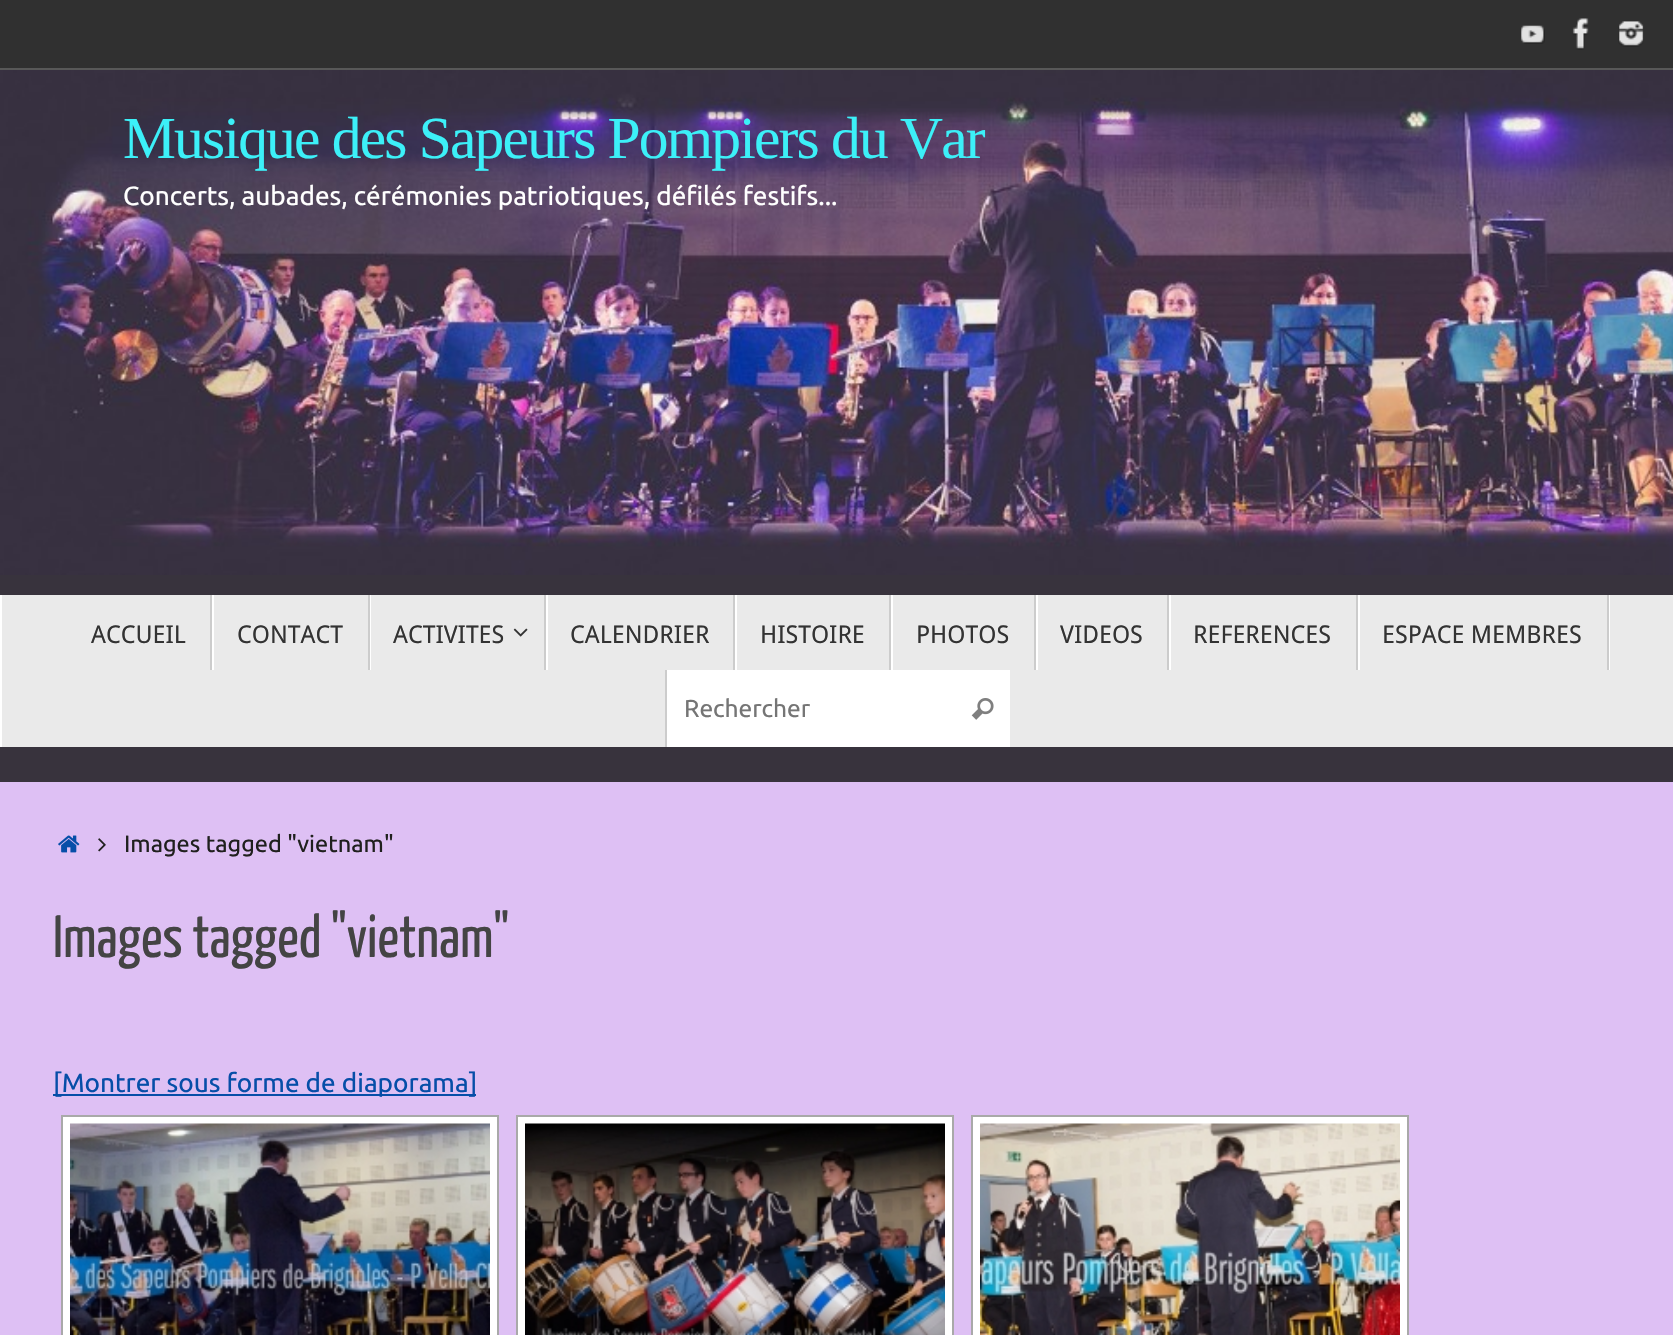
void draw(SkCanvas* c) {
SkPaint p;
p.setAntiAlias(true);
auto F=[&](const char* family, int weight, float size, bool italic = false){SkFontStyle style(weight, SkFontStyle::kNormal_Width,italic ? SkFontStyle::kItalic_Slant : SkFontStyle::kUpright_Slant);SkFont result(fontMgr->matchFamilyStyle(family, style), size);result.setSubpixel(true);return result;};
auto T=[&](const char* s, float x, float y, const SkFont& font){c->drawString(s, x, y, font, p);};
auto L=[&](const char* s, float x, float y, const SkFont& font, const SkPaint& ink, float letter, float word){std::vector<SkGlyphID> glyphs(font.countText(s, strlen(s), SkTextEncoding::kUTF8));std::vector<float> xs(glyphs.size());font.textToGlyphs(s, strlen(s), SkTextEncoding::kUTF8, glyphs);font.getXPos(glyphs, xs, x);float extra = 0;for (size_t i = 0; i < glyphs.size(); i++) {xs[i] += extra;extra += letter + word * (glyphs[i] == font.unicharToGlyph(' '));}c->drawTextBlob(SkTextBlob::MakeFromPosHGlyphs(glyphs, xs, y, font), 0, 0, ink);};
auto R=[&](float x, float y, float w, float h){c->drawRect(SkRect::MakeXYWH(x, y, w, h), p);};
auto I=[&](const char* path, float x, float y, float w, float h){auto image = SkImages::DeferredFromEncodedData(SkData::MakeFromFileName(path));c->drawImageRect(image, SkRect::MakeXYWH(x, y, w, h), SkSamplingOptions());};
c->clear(0xff38333d);
p.setColor(0xff303030);
R(0,0,1673,68);
p.setColor(0xff585858);
R(0,68,1673,2);
I("1.png",1521,25,24,19);
I("2.png",1572,18,17,32);
I("3.png",1618,21,26,26);
I("4.png",0,70,1673,505);
auto f1 = F("Liberation Serif",400,59.5);
p.setColor(0xff3cf0f8);
L("Musique des Sapeurs Pompiers du Var",123,158,f1,p,-1.8,0);
auto f2 = F("Ubuntu",400,26.25);
p.setColor(0xffffffff);
T("Concerts, aubades, cérémonies patriotiques, défilés festifs...",123,205,f2);
p.setColor(0xffeaeaea);
R(2,595,1671,152);
p.setColor(0xffffffff);
R(0,595,2,152);
R(212,595,2,75);
p.setColor(0xffcccccc);
R(210,595,2,75);
auto f3 = F("Droid Sans",400,24.5);
p.setColor(0xff333333);
T("ACCUEIL",91,643,f3);
p.setColor(0xffffffff);
R(370,595,1,75);
p.setColor(0xffcccccc);
R(368,595,2,75);
p.setColor(0xff333333);
T("CONTACT",237,643,f3);
p.setColor(0xffffffff);
R(546,595,2,75);
p.setColor(0xffcccccc);
R(544,595,2,75);
p.setColor(0xff333333);
T("ACTIVITES",393,643,f3);
I("5.png",513,628,15,9);
p.setColor(0xffffffff);
R(735,595,2,75);
p.setColor(0xffcccccc);
R(733,595,2,75);
p.setColor(0xff333333);
T("CALENDRIER",570,643,f3);
p.setColor(0xffffffff);
R(891,595,2,75);
p.setColor(0xffcccccc);
R(889,595,2,75);
p.setColor(0xff333333);
T("HISTOIRE",760,643,f3);
p.setColor(0xffffffff);
R(1036,595,2,75);
p.setColor(0xffcccccc);
R(1034,595,2,75);
p.setColor(0xff333333);
T("PHOTOS",916,643,f3);
p.setColor(0xffffffff);
R(1169,595,2,75);
p.setColor(0xffcccccc);
R(1167,595,2,75);
p.setColor(0xff333333);
T("VIDEOS",1060,643,f3);
p.setColor(0xffffffff);
R(1358,595,2,75);
p.setColor(0xffcccccc);
R(1356,595,2,75);
p.setColor(0xff333333);
T("REFERENCES",1193,643,f3);
p.setColor(0xffffffff);
R(1609,595,1,75);
p.setColor(0xffcccccc);
R(1607,595,2,75);
p.setColor(0xff333333);
T("ESPACE MEMBRES",1382,643,f3);
p.setColor(0xffffffff);
R(667,670,343,77);
p.setColor(0xffcccccc);
R(665,670,2,77);
auto f4 = F("Ubuntu",400,24.5);
p.setColor(0xff757575);
T("Rechercher",684,717,f4);
I("6.png",971,698,23,22);
p.setColor(0xffdec0f4);
R(0,782,1673,553);
I("7.png",58,835,22,18);
I("8.png",98,838,8,14);
auto f5 = F("Ubuntu",400,23.6);
p.setColor(0xff20201e);
T("Images tagged \"vietnam\"",124,852,f5);
auto f6 = F("Yanone Kaffeesatz",400,59.5);
p.setColor(0xff444444);
T("Images tagged \"vietnam\"",53,957,f6);
p.setColor(0xff064ea8);
R(53,1094,423,2);
T("[Montrer sous forme de diaporama]",53,1092,f2);
p.setColor(0xffffffff);
c->drawRect(SkRect::MakeXYWH(62,1116,436,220),p);
p.setStroke(true);
p.setStrokeWidth(2);
p.setColor(0xffa9a9a9);
c->drawRect(SkRect::MakeXYWH(62,1116,436,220),p);
I("9.png",70,1123,420,212);
p.setStroke(false);
p.setColor(0xffffffff);
c->drawRect(SkRect::MakeXYWH(517,1116,436,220),p);
p.setStroke(true);
p.setColor(0xffa9a9a9);
c->drawRect(SkRect::MakeXYWH(517,1116,436,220),p);
I("10.png",525,1123,420,212);
p.setStroke(false);
p.setColor(0xffffffff);
c->drawRect(SkRect::MakeXYWH(972,1116,436,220),p);
p.setStroke(true);
p.setColor(0xffa9a9a9);
c->drawRect(SkRect::MakeXYWH(972,1116,436,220),p);
I("11.png",980,1123,420,212);
}
